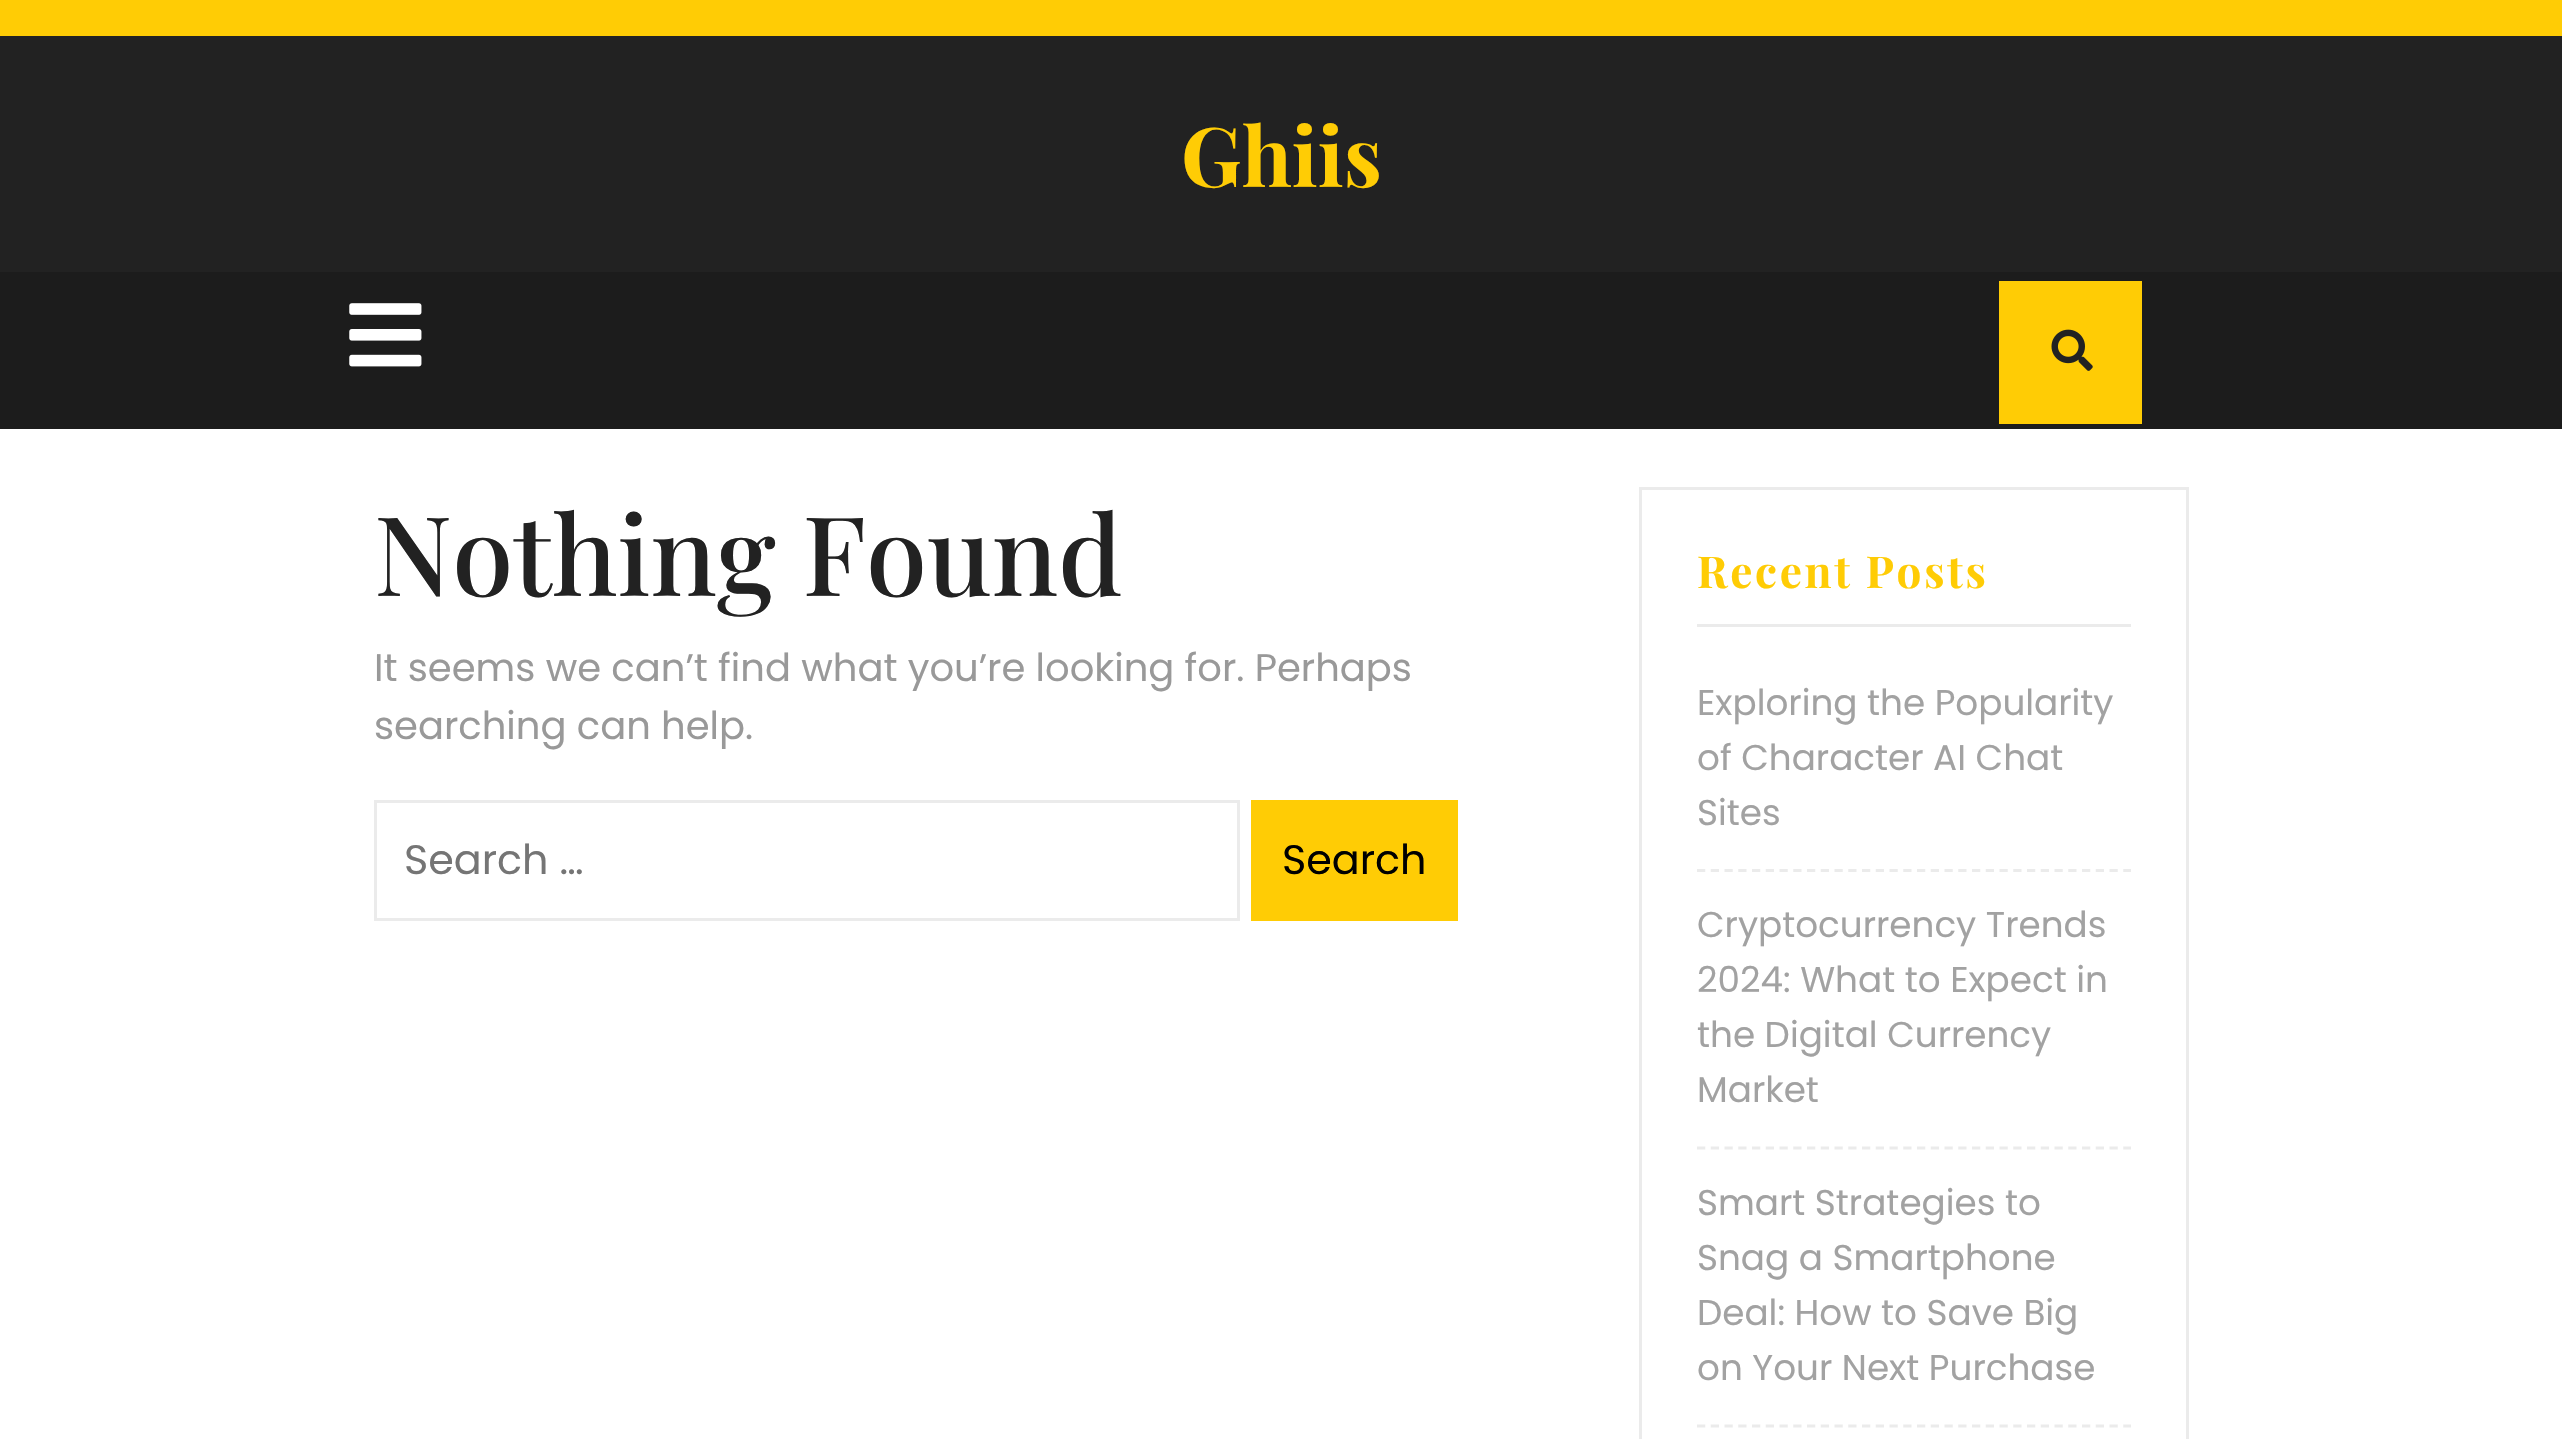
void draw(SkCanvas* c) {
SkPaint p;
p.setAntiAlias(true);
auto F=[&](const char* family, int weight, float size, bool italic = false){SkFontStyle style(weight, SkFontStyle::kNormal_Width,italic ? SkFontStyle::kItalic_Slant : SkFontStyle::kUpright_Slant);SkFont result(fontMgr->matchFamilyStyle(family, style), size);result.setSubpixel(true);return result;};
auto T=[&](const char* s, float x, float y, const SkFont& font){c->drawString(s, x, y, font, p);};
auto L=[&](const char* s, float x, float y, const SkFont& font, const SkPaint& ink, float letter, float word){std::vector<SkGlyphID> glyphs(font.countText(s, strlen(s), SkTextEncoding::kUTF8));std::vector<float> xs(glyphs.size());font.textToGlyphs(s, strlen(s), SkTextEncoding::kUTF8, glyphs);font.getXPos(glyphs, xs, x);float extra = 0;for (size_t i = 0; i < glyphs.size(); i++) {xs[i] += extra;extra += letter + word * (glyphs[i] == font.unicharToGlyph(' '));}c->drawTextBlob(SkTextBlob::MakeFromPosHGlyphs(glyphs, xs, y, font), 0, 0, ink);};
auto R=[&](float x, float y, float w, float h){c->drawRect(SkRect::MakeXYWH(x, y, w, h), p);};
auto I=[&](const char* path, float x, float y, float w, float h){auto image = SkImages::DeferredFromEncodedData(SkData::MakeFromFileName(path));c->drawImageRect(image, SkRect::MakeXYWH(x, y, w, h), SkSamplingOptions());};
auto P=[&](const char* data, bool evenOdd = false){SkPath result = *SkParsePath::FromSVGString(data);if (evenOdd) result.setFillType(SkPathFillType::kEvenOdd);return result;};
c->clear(0xffffffff);
p.setColor(0xffffcc05);
R(0,0,2562,36);
p.setColor(0xff222222);
R(0,36,2562,236);
auto f1 = F("Playfair Display",700,82.5);
p.setColor(0xffffcc05);
T("Ghiis",1181,187,f1);
p.setColor(0xff1c1c1c);
R(0,272,2562,157);
I("1.png",349,303,73,64);
p.setColor(0xffffcc05);
R(1999,281,143,143);
I("2.png",2051,329,42,42);
auto f2 = F("Playfair Display",500,110);
p.setColor(0xff222222);
T("Nothing Found",374,596,f2);
auto f3 = F("Poppins",400,38.5);
p.setColor(0xff999999);
T("It seems we can’t find what you’re looking for. Perhaps",374,681,f3);
T("searching can help.",374,739,f3);
p.setStroke(true);
p.setStrokeWidth(3);
p.setColor(0xffebebeb);
c->drawRect(SkRect::MakeXYWH(375.5,801.5,863,118),p);
auto f4 = F("Poppins",400,41.25);
p.setStroke(false);
p.setColor(0xff757575);
T("Search …",404,874,f4);
p.setColor(0xffffcc05);
R(1251,800,207,121);
p.setColor(0xff000000);
T("Search",1282,874,f4);
p.setStroke(true);
p.setColor(0xffebebeb);
c->drawRect(SkRect::MakeXYWH(1640.5,488.5,547,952),p);
p.setStroke(false);
R(1697,624,434,3);
auto f5 = F("Playfair Display",700,44);
p.setColor(0xffffcc05);
L("Recent Posts",1697,588,f5,p,2.75,0);
p.setStroke(true);
p.setStrokeWidth(2.8);
p.setColor(0xffebebeb);
p.setPathEffect(SkDashPathEffect::Make({{8.25f,5.5f}}, 0));
c->drawPath(P("M1697 870.5h434"),p);
p.setPathEffect(nullptr);
auto f6 = F("Poppins",400,35.75);
p.setStroke(false);
p.setColor(0xffa2a2a2);
T("Exploring the Popularity",1697,715,f6);
T("of Character AI Chat",1697,770,f6);
T("Sites",1697,825,f6);
p.setStroke(true);
p.setColor(0xffebebeb);
p.setPathEffect(SkDashPathEffect::Make({{8.25f,5.5f}}, 0));
c->drawPath(P("M1697 1148h434"),p);
p.setPathEffect(nullptr);
p.setStroke(false);
p.setColor(0xffa2a2a2);
T("Cryptocurrency Trends",1697,937,f6);
T("2024: What to Expect in",1697,992,f6);
T("the Digital Currency",1697,1047,f6);
T("Market",1697,1102,f6);
p.setStroke(true);
p.setColor(0xffebebeb);
p.setPathEffect(SkDashPathEffect::Make({{8.25f,5.5f}}, 0));
c->drawPath(P("M1697 1426h434"),p);
p.setPathEffect(nullptr);
p.setStroke(false);
p.setColor(0xffa2a2a2);
T("Smart Strategies to",1697,1215,f6);
T("Snag a Smartphone",1697,1270,f6);
T("Deal: How to Save Big",1697,1325,f6);
T("on Your Next Purchase",1697,1380,f6);
}
